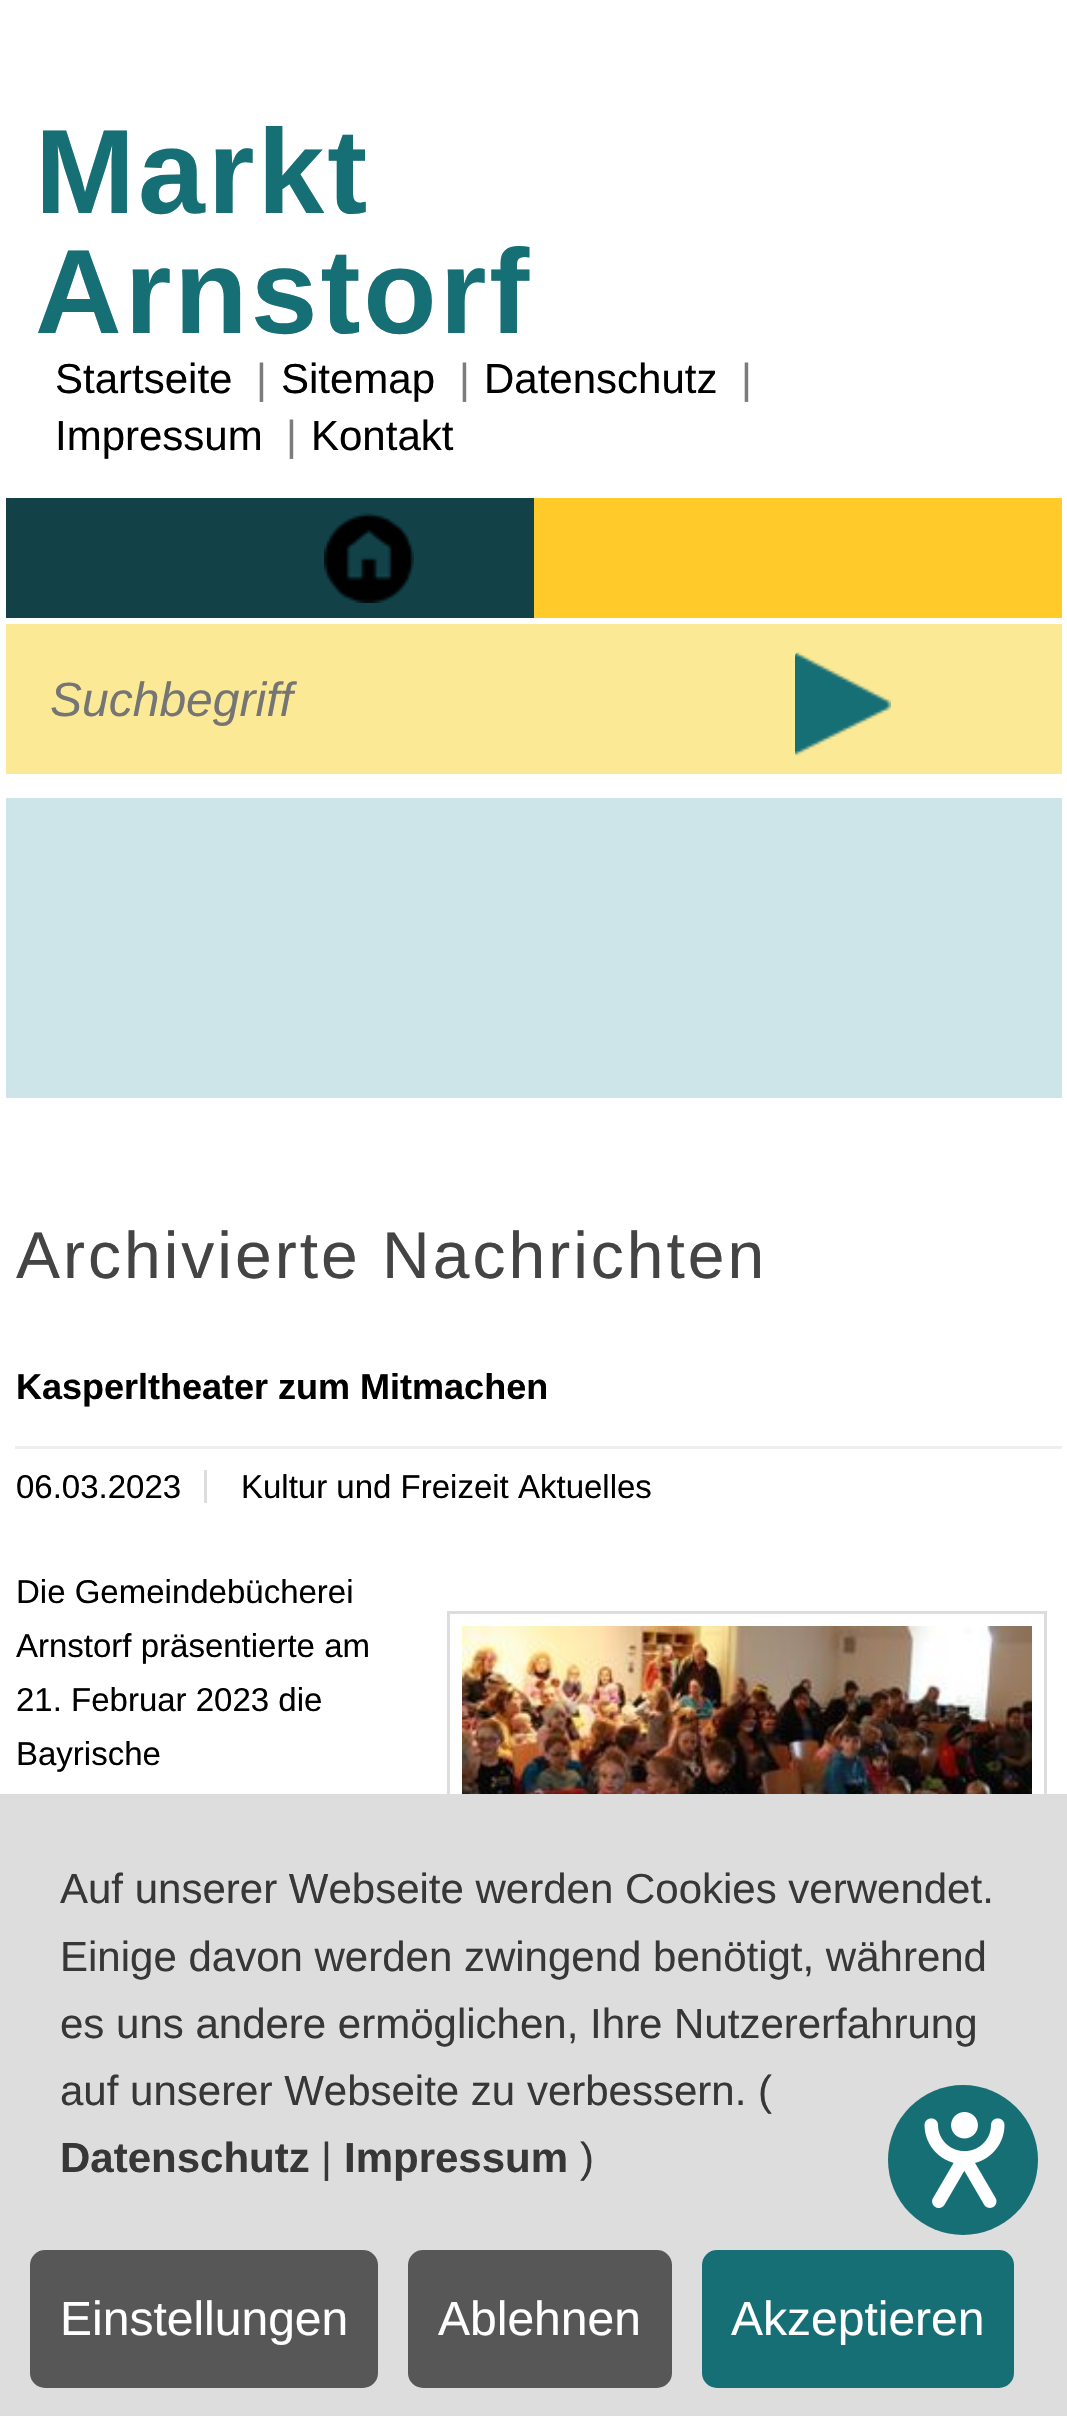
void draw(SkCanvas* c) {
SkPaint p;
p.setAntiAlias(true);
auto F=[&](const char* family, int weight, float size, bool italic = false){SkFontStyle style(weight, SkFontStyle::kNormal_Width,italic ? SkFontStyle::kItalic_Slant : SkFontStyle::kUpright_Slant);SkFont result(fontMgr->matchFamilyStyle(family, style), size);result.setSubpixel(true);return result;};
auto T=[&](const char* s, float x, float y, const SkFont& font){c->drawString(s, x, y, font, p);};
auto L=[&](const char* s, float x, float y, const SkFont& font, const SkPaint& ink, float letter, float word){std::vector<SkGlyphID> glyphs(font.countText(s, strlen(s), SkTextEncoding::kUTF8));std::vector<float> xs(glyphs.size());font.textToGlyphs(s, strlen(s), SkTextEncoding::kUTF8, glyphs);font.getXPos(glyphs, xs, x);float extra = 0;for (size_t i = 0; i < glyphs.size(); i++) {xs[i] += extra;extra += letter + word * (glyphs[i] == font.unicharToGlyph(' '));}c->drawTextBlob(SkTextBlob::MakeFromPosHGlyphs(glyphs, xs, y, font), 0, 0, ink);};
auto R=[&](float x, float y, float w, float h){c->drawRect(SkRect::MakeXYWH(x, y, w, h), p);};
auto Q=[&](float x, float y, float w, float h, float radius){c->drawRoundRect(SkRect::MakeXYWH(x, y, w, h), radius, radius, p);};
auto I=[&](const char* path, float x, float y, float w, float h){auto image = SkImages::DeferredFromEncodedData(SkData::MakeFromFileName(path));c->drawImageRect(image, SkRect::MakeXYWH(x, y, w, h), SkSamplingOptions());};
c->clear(0xffffffff);
auto f1 = F("Liberation Sans",700,120);
p.setColor(0xff176f76);
L("Markt",35,213,f1,p,3,0);
L("Arnstorf",35,333,f1,p,3,0);
auto f2 = F("Liberation Sans",400,42);
p.setColor(0xff000000);
T("Startseite",55,393,f2);
p.setColor(0xff7c7c7c);
T("|",256,393,f2);
p.setColor(0xff000000);
T("Sitemap",281,393,f2);
p.setColor(0xff7c7c7c);
T("|",459,393,f2);
p.setColor(0xff000000);
T("Datenschutz",484,393,f2);
p.setColor(0xff7c7c7c);
T("|",741,393,f2);
p.setColor(0xff000000);
T("Impressum",55,450,f2);
p.setColor(0xff7c7c7c);
T("|",286,450,f2);
p.setColor(0xff000000);
T("Kontakt",311,450,f2);
p.setColor(0xff124148);
R(6,498,528,120);
I("1.png",324,513,90,90);
p.setColor(0xffffca2a);
R(534,498,528,120);
p.setColor(0xfffbe996);
R(6,624,1056,150);
auto f3 = F("Liberation Sans",400,48,true);
p.setColor(0xff757575);
T("Suchbegriff",50,716,f3);
I("2.png",795,652,96,104);
p.setColor(0xffcde5e8);
R(6,798,1056,300);
auto f4 = F("Liberation Sans",400,66);
p.setColor(0xff444444);
L("Archivierte Nachrichten",16,1278,f4,p,3,0);
auto f5 = F("Liberation Sans",700,36);
p.setColor(0xff000000);
T("Kasperltheater zum Mitmachen",16,1399,f5);
p.setColor(0xffeeeeee);
R(15,1446,1047,3);
p.setColor(0xffdddddd);
R(204,1470,3,33);
auto f6 = F("Liberation Sans",400,33);
p.setColor(0xff000000);
T("06.03.2023",16,1498,f6);
T("Kultur und Freizeit Aktuelles",241,1498,f6);
T("Die Gemeindebücherei",16,1603,f6);
T("Arnstorf präsentierte am",16,1657,f6);
T("21. Februar 2023 die",16,1711,f6);
T("Bayrische",16,1765,f6);
p.setStroke(true);
p.setStrokeWidth(3);
p.setColor(0xffdddddd);
c->drawRect(SkRect::MakeXYWH(448.5,1612.5,597,348),p);
I("3.png",462,1626,570,168);
p.setStroke(false);
R(0,1794,1067,622);
p.setColor(0xff373737);
T("Auf unserer Webseite werden Cookies verwendet.",60,1903,f2);
T("Einige davon werden zwingend benötigt, während",60,1971,f2);
T("es uns andere ermöglichen, Ihre Nutzererfahrung",60,2038,f2);
T("auf unserer Webseite zu verbessern. (",60,2105,f2);
auto f7 = F("Liberation Sans",700,42);
T("Datenschutz",60,2172,f7);
T("|",321,2172,f2);
T("Impressum",344,2172,f7);
T(")",580,2172,f2);
p.setColor(0xff575757);
Q(30,2250,348,138,15);
auto f8 = F("Liberation Sans",400,48);
p.setColor(0xffffffff);
T("Einstellungen",60,2335,f8);
p.setColor(0xff575757);
Q(408,2250,264,138,15);
p.setColor(0xffffffff);
T("Ablehnen",438,2335,f8);
p.setColor(0xff176f76);
Q(702,2250,312,138,15);
p.setColor(0xffffffff);
T("Akzeptieren",731,2335,f8);
p.setColor(0xff176f76);
c->drawCircle(963,2160,75,p);
I("4.png",924,2112,81,96);
}
